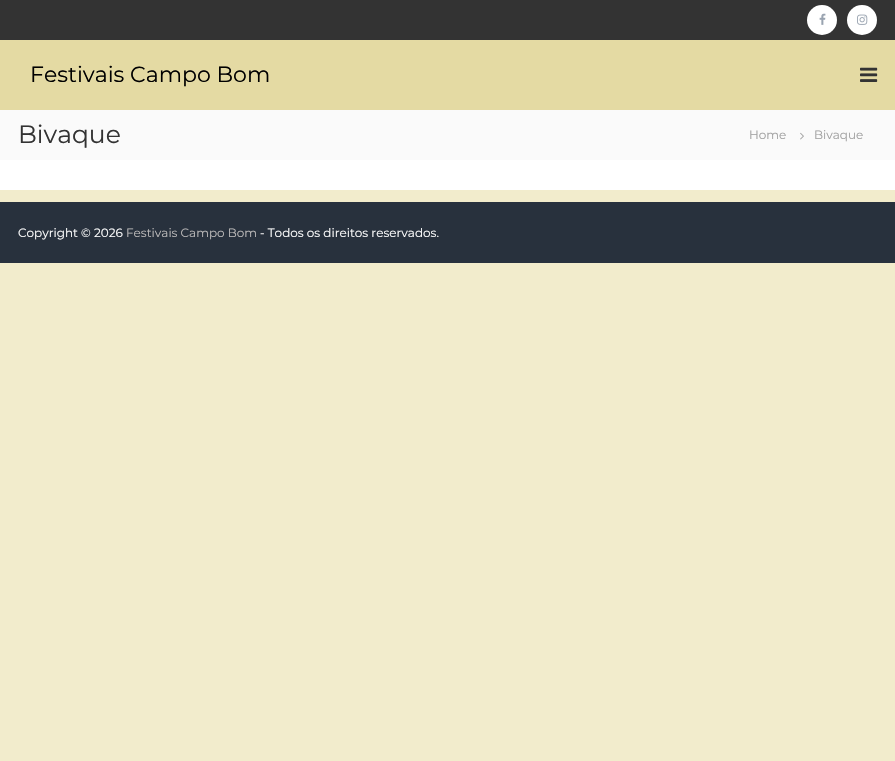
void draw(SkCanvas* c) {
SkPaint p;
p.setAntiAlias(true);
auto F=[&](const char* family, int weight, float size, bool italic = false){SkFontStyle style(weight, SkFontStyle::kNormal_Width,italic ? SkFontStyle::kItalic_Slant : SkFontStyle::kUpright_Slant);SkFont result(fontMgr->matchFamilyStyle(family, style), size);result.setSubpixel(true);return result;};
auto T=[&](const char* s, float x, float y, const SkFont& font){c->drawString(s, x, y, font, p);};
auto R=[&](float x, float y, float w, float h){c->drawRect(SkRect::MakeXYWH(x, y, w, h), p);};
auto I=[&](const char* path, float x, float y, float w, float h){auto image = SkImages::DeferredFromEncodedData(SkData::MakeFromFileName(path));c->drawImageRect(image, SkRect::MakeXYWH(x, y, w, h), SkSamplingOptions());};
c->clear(0xfff2eccc);
p.setColor(0xffffffff);
R(0,160,895,30);
p.setColor(0xff333333);
R(0,0,895,40);
p.setColor(0xffffffff);
c->drawCircle(822,20,15,p);
I("1.png",819,13,7,12);
c->drawCircle(862,20,15,p);
I("2.png",857,14,11,11);
p.setColor(0xffe4daa3);
R(0,40,895,70);
auto f1 = F("Montserrat",400,22);
p.setColor(0xff000000);
T("Festivais Campo Bom",30,82,f1);
I("3.png",860,67,18,15);
p.setColor(0xfffafafa);
R(0,110,895,50);
auto f2 = F("Montserrat",400,25);
p.setColor(0xff333333);
T("Bivaque",18,143,f2);
auto f3 = F("Montserrat",400,12);
p.setColor(0xffa1a1a1);
T("Home",749,139,f3);
I("4.png",800,132,4,8);
T("Bivaque",814,139,f3);
p.setColor(0xff28313d);
R(0,202,895,61);
p.setColor(0xffffffff);
T("Copyright © 2026",18,237,f3);
p.setColor(0xffbcbaba);
T("Festivais Campo Bom",126,237,f3);
p.setColor(0xffffffff);
T("- Todos os direitos reservados.",260,237,f3);
}
